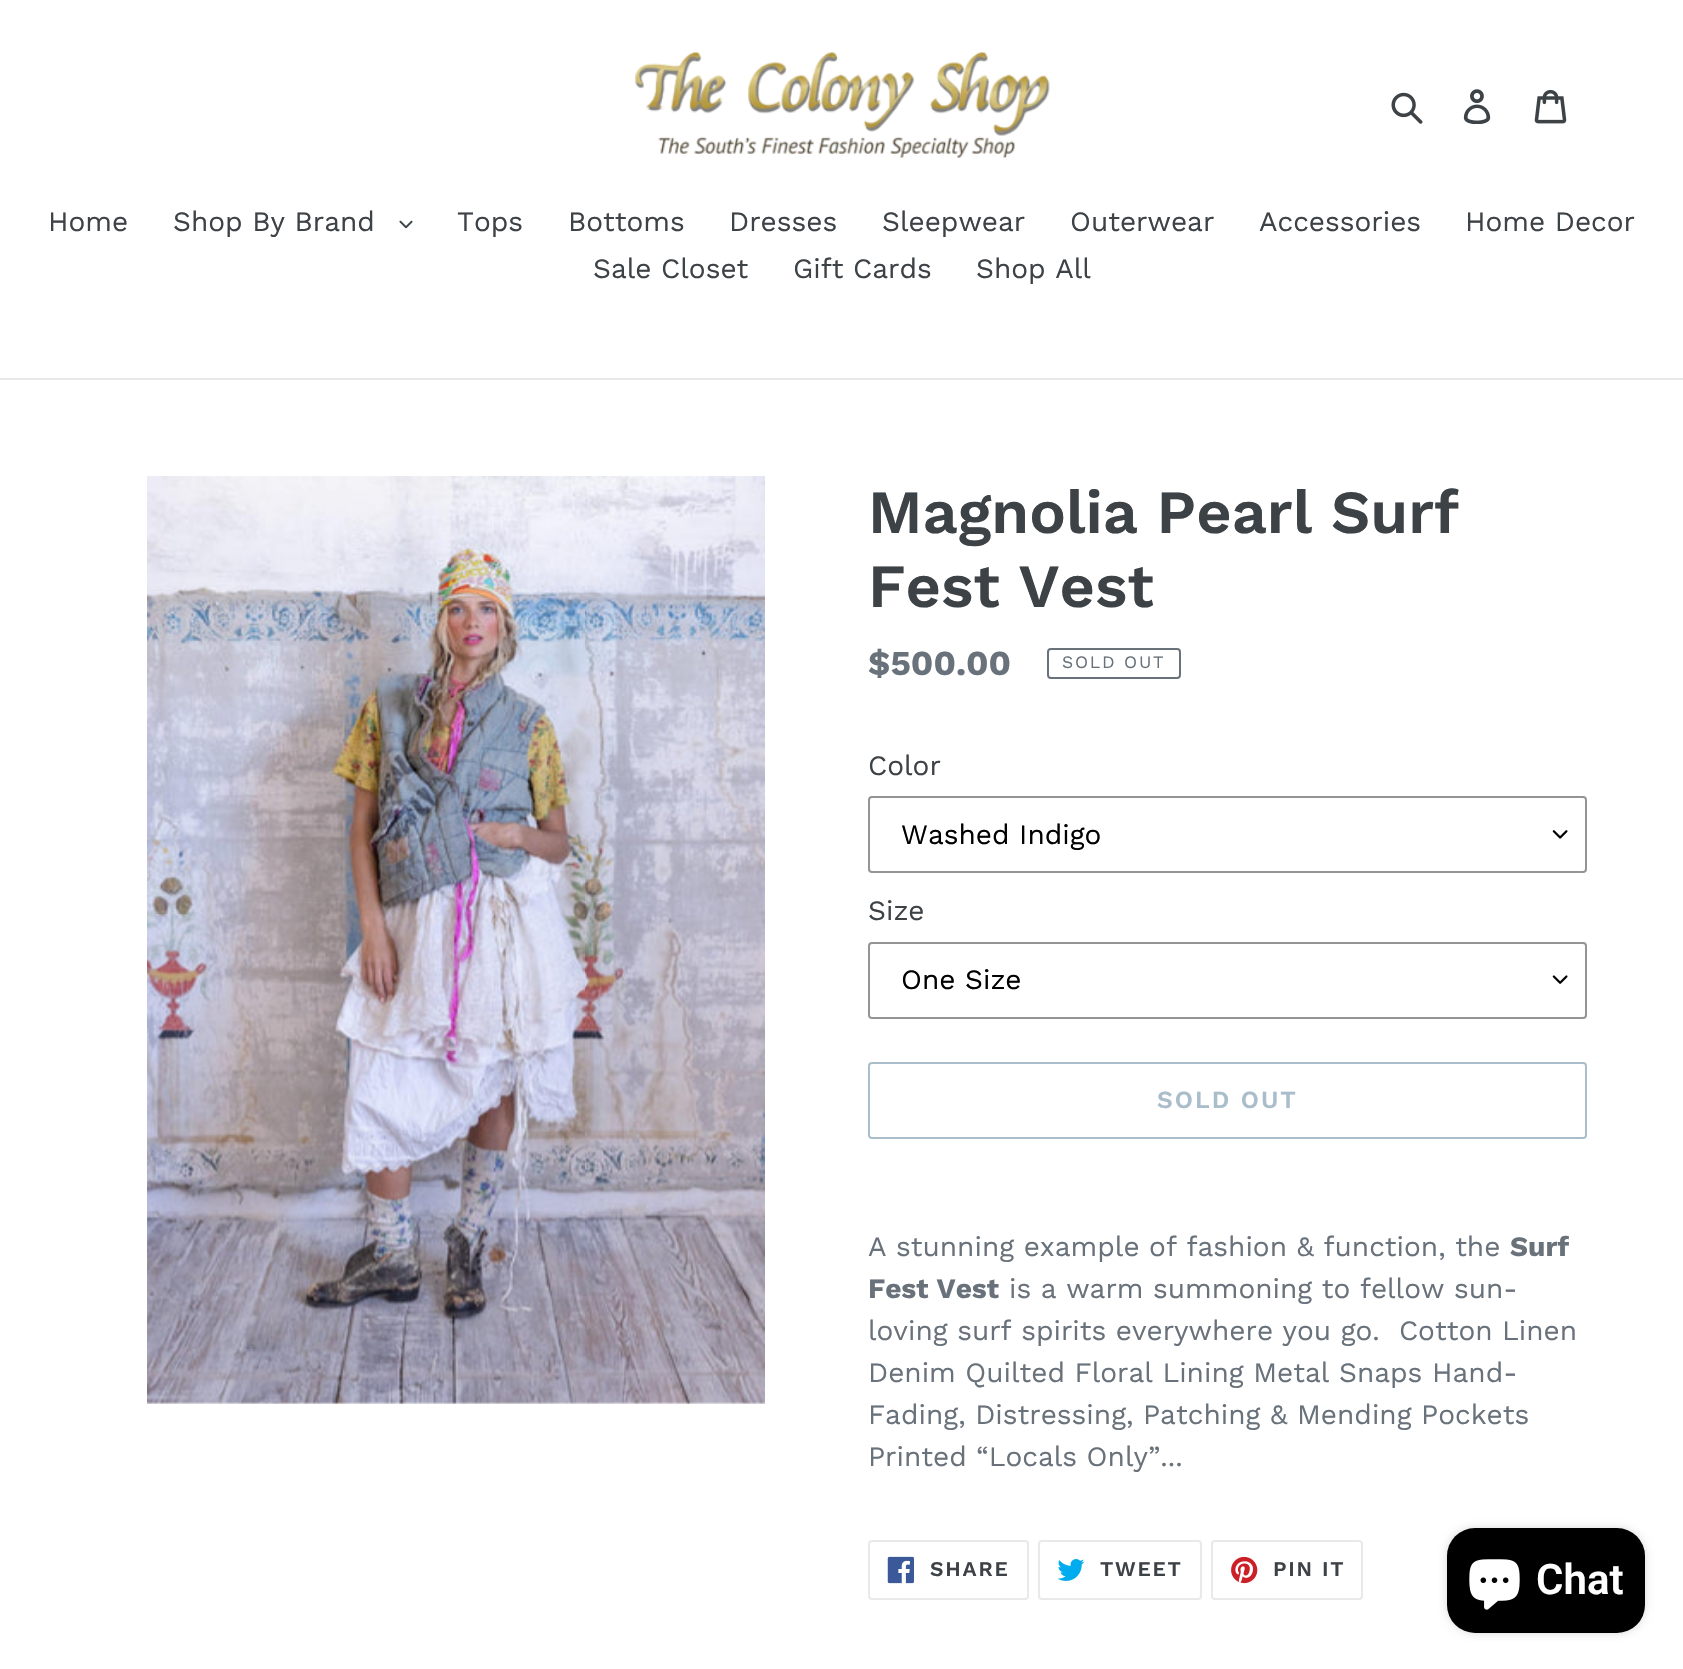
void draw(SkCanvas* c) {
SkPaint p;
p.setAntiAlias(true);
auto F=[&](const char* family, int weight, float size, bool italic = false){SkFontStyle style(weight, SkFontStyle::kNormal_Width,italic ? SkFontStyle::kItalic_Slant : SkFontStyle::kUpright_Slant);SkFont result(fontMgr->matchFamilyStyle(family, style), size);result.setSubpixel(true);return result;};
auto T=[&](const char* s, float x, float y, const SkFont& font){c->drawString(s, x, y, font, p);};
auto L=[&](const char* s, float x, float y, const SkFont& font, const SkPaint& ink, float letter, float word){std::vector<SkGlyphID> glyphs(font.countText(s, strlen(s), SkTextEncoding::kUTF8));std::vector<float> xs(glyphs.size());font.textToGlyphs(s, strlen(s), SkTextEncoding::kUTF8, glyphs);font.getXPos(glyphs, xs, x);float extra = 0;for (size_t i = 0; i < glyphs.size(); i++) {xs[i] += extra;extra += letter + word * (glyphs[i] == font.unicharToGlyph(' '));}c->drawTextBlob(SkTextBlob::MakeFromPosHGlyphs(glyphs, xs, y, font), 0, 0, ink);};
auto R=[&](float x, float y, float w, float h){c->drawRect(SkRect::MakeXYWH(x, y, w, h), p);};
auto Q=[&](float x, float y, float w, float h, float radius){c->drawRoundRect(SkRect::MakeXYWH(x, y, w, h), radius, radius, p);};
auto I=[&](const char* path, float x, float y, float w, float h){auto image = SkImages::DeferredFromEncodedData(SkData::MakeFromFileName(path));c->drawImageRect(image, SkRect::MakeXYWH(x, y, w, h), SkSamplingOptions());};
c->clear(0xffffffff);
I("1.png",635,52,415,106);
I("2.png",1391,92,32,32);
I("3.png",1463,89,28,35);
I("4.png",1534,89,33,35);
p.setColor(0xffe8e9eb);
R(0,378,1683,2);
auto f1 = F("Work Sans",400,28);
p.setColor(0xff3d4246);
T("Home",48,231,f1);
T("Shop By Brand",173,231,f1);
I("5.png",399,220,14,9);
T("Tops",457,231,f1);
T("Bottoms",568,231,f1);
T("Dresses",729,231,f1);
T("Sleepwear",882,231,f1);
T("Outerwear",1070,231,f1);
T("Accessories",1259,231,f1);
T("Home Decor",1465,231,f1);
T("Sale Closet",593,278,f1);
T("Gift Cards",793,278,f1);
T("Shop All",976,278,f1);
I("6.png",147,476,618,928);
auto f2 = F("Work Sans",600,61.25);
T("Magnolia Pearl Surf",868,533,f2);
T("Fest Vest",868,607,f2);
auto f3 = F("Work Sans",700,35);
p.setColor(0xff69727b);
T("$500.00",868,675,f3);
p.setStroke(true);
p.setStrokeWidth(2);
c->drawRoundRect(SkRect::MakeXYWH(1048,649,132,29),3,3,p);
auto f4 = F("Work Sans",400,17.5);
p.setStroke(false);
L("SOLD OUT",1062,668,f4,p,1.75,0);
p.setColor(0xff3d4246);
T("Color",868,775,f1);
I("7.png",1552,830,16,9);
p.setStroke(true);
p.setColor(0xff949494);
c->drawRoundRect(SkRect::MakeXYWH(869,797,717,75),3,3,p);
p.setStroke(false);
p.setColor(0xff000000);
T("Washed Indigo",901,844,f1);
p.setColor(0xff3d4246);
T("Size",868,920,f1);
I("8.png",1552,975,16,9);
p.setStroke(true);
p.setColor(0xff949494);
c->drawRoundRect(SkRect::MakeXYWH(869,943,717,75),3,3,p);
p.setStroke(false);
p.setColor(0xff000000);
T("One Size",901,989,f1);
p.setStroke(true);
p.setColor(0xffaabdcb);
c->drawRoundRect(SkRect::MakeXYWH(869,1063,717,75),3,3,p);
auto f5 = F("Work Sans",600,24.5);
p.setStroke(false);
L("SOLD OUT",1157,1108,f5,p,2,0);
p.setColor(0xff69727b);
T("A stunning example of fashion & function, the",868,1256,f1);
auto f6 = F("Work Sans",700,28);
T("Surf",1510,1256,f6);
T("Fest Vest",868,1298,f6);
T("is a warm summoning to fellow sun-",1009,1298,f1);
T("loving surf spirits everywhere you go.  Cotton Linen",868,1340,f1);
T("Denim Quilted Floral Lining Metal Snaps Hand-",868,1382,f1);
T("Fading, Distressing, Patching & Mending Pockets",868,1424,f1);
T("Printed “Locals Only”...",868,1466,f1);
p.setStroke(true);
p.setColor(0xffe8e9eb);
c->drawRoundRect(SkRect::MakeXYWH(869,1541,159,58),3,3,p);
I("9.png",887,1556,27,28);
auto f7 = F("Work Sans",600,21);
p.setStroke(false);
p.setColor(0xff3d4246);
L("SHARE",930,1576,f7,p,1.75,0);
p.setStroke(true);
p.setColor(0xffe8e9eb);
c->drawRoundRect(SkRect::MakeXYWH(1039,1541,162,58),3,3,p);
I("10.png",1057,1559,28,22);
p.setStroke(false);
p.setColor(0xff3d4246);
L("TWEET",1100,1576,f7,p,1.75,0);
p.setStroke(true);
p.setColor(0xffe8e9eb);
c->drawRoundRect(SkRect::MakeXYWH(1212,1541,150,58),3,3,p);
I("11.png",1231,1556,27,28);
p.setStroke(false);
p.setColor(0xff3d4246);
L("PIN IT",1273,1576,f7,p,1.75,0);
p.setColor(0x26000000);
p.setMaskFilter(SkMaskFilter::MakeBlur(kNormal_SkBlurStyle, 4.5));
c->drawRoundRect(SkRect::MakeXYWH(1447,1528,198,105),28,28,p);
p.setMaskFilter(nullptr);
p.setColor(0xff000000);
Q(1447,1528,198,105,28);
I("12.png",1469,1559,51,51);
auto f8 = F("Roboto",600,42);
p.setColor(0xffffffff);
T("Chat",1536,1594,f8);
}
